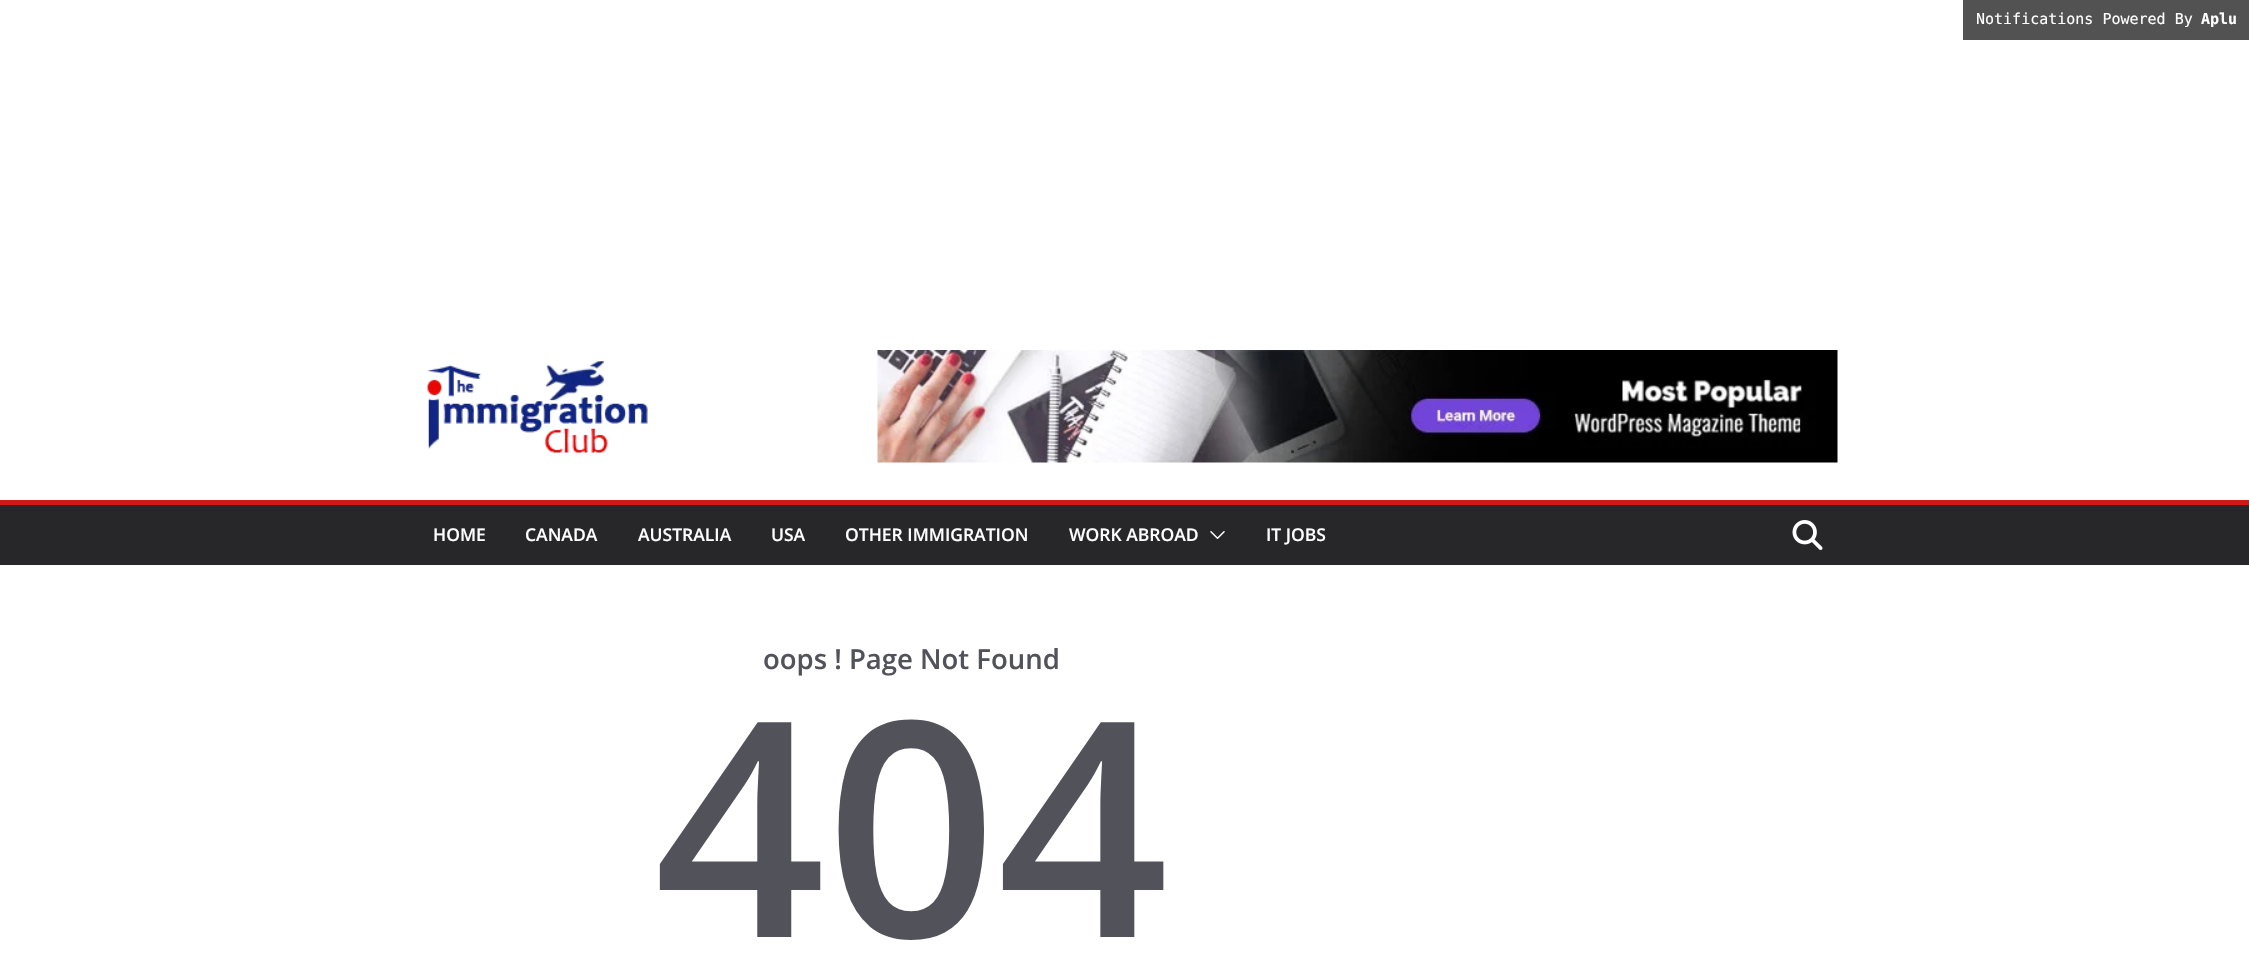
void draw(SkCanvas* c) {
SkPaint p;
p.setAntiAlias(true);
auto F=[&](const char* family, int weight, float size, bool italic = false){SkFontStyle style(weight, SkFontStyle::kNormal_Width,italic ? SkFontStyle::kItalic_Slant : SkFontStyle::kUpright_Slant);SkFont result(fontMgr->matchFamilyStyle(family, style), size);result.setSubpixel(true);return result;};
auto T=[&](const char* s, float x, float y, const SkFont& font){c->drawString(s, x, y, font, p);};
auto R=[&](float x, float y, float w, float h){c->drawRect(SkRect::MakeXYWH(x, y, w, h), p);};
auto I=[&](const char* path, float x, float y, float w, float h){auto image = SkImages::DeferredFromEncodedData(SkData::MakeFromFileName(path));c->drawImageRect(image, SkRect::MakeXYWH(x, y, w, h), SkSamplingOptions());};
c->clear(0xffffffff);
p.setColor(0xff525252);
R(1963,0,286,40);
auto f1 = F("DejaVu Sans Mono",400,15);
p.setColor(0xffffffff);
T("Notifications Powered By",1976,24,f1);
auto f2 = F("DejaVu Sans Mono",700,15);
T("Aplu",2201,24,f2);
I("1.png",427,360,221,93);
I("2.png",877,350,961,113);
p.setColor(0xff27272a);
R(0,505,2249,60);
p.setColor(0xffd11717);
R(0,500,2249,5);
auto f3 = F("Open Sans",600,17.5);
p.setColor(0xffffffff);
T("HOME",433,541,f3);
T("CANADA",525,541,f3);
T("AUSTRALIA",638,541,f3);
T("USA",771,541,f3);
T("OTHER IMMIGRATION",845,541,f3);
T("WORK ABROAD",1069,541,f3);
I("3.png",1210,531,15,8);
T("IT JOBS",1266,541,f3);
I("4.png",1792,520,31,30);
auto f4 = F("Open Sans",600,27.5);
p.setColor(0xff52525b);
T("oops ! Page Not Found",763,669,f4);
auto f5 = F("Open Sans",600,300);
T("404",654,937,f5);
}
